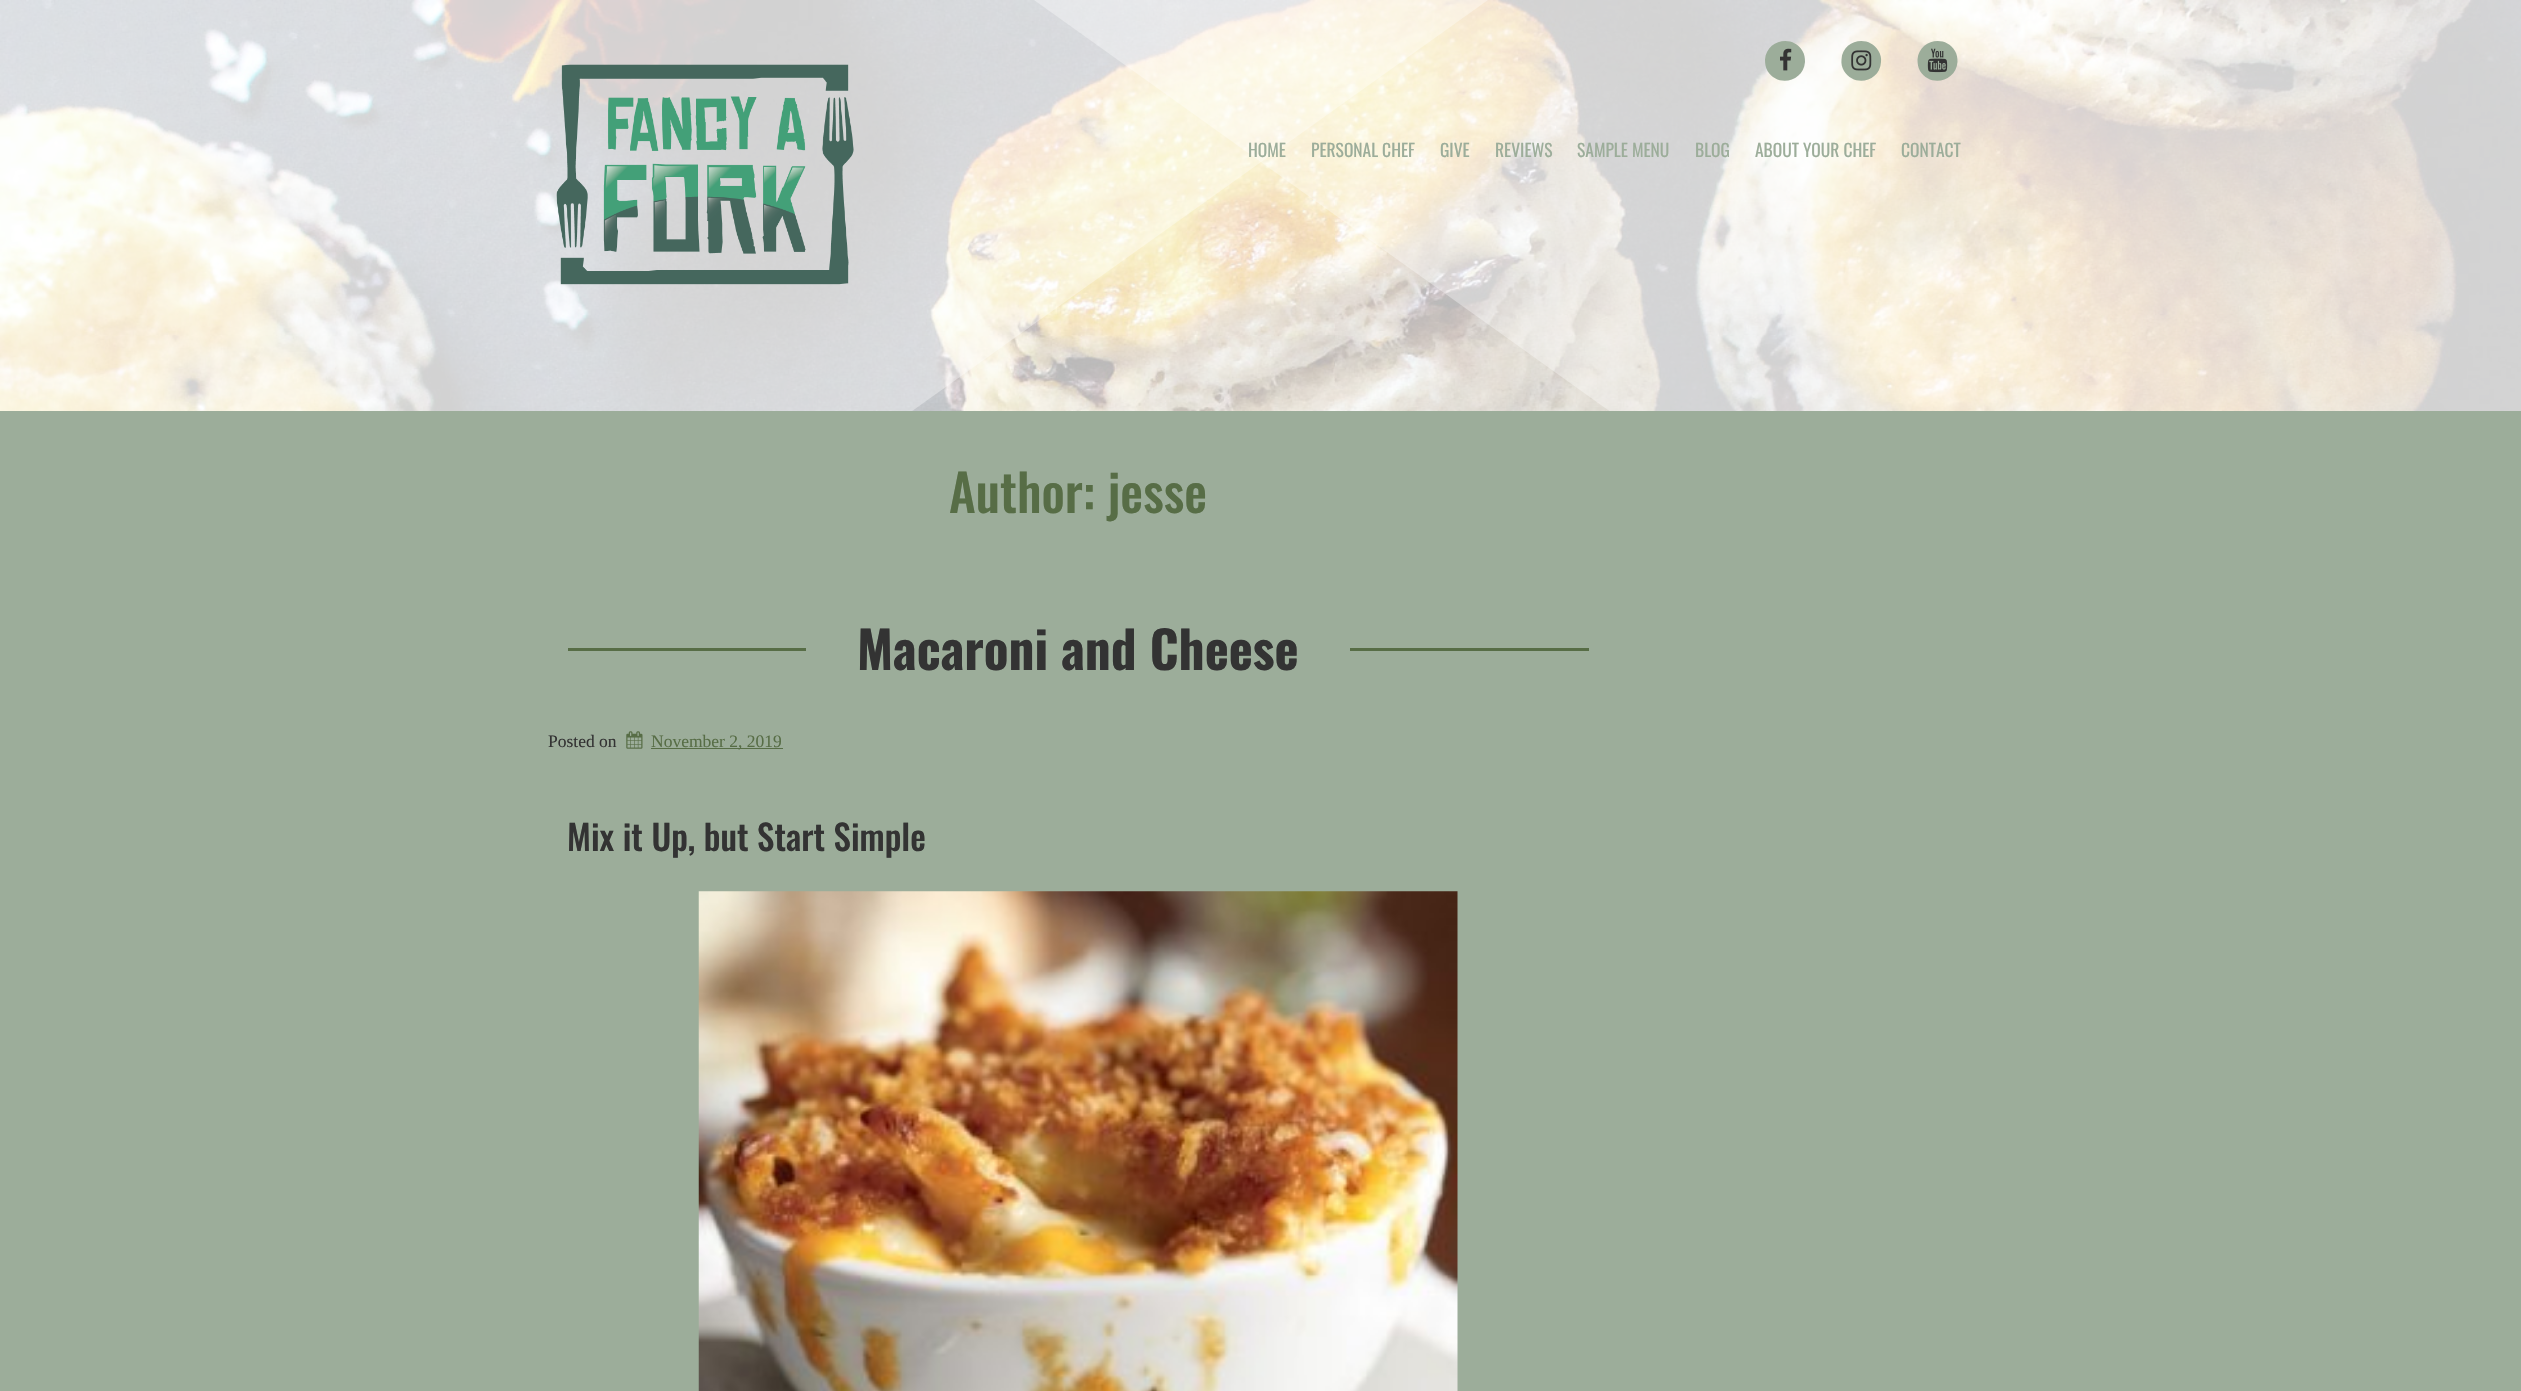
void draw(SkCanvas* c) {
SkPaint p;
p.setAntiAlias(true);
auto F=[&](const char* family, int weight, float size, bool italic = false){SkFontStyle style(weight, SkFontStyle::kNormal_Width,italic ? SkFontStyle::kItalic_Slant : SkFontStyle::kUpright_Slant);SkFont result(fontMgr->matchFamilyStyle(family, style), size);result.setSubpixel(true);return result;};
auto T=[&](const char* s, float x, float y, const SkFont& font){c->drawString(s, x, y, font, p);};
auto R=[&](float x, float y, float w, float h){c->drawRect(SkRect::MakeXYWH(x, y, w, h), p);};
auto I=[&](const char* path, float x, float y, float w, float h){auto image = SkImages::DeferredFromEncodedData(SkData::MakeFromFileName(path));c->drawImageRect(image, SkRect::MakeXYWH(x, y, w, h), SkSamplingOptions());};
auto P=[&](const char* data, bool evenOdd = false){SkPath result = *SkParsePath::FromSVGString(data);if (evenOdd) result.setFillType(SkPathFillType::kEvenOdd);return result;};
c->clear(0xffffffff);
I("1.png",0,0,2521,411);
p.setColor(0x59ffffff);
c->drawPath(P("M1034 0h1487v875h-262z"),p);
c->drawPath(P("M0 0h1488l-1226 875h-262z"),p);
p.setColor(0xb3ffffff);
R(0,0,2521,411);
I("2.png",556,64,298,221);
p.setColor(0xff9cad9a);
c->drawPath(P("M1802.5 51c2 3 2.5 7 2.5 11c-1.5 20-27.5 25.5-37.5 9c-2-3.5-2.5-7.5-2.5-11.5c1.5-19.5 27.5-25.5 37.5-8.5z"),p);
I("3.png",1780,48,12,23);
c->drawPath(P("M1878.5 51c2 3 3 7 2.5 11c-1 20-27 25.5-37 9c-2-3.5-3-7.5-2.5-11.5c1-19.5 27-25.5 37-8.5z"),p);
I("4.png",1851,50,21,21);
c->drawPath(P("M1955 51c2 3 2.5 7 2.5 11c-1.5 20-27.5 25.5-37.5 9c-2-3.5-2.5-7.5-2.5-11.5c1.5-19.5 27.5-25.5 37.5-8.5z"),p);
I("5.png",1927,48,21,25);
auto f1 = F("Oswald",400,17.5);
T("HOME",1248,157,f1);
T("PERSONAL CHEF",1311,157,f1);
T("GIVE",1440,157,f1);
T("REVIEWS",1495,157,f1);
T("SAMPLE MENU",1577,157,f1);
T("BLOG",1695,157,f1);
T("ABOUT YOUR CHEF",1755,157,f1);
T("CONTACT",1901,157,f1);
R(0,411,2521,980);
auto f2 = F("Oswald",500,51.25);
p.setColor(0xff576d46);
T("Author: jesse",949,513,f2);
R(568,648,1021,3);
p.setColor(0xff9cad9a);
R(806,648,544,3);
auto f3 = F("Oswald",700,51.25);
p.setColor(0xff333333);
T("Macaroni and Cheese",857,670,f3);
auto f4 = F("Liberation Serif",400,17.5);
T("Posted on",548,747,f4);
I("6.png",626,731,17,18);
p.setColor(0xff576d46);
R(651,748,132,1);
T("November 2, 2019",651,747,f4);
auto f5 = F("Oswald",500,35);
p.setColor(0xff333333);
T("Mix it Up, but Start Simple",567,851,f5);
I("7.png",698,891,760,500);
}
